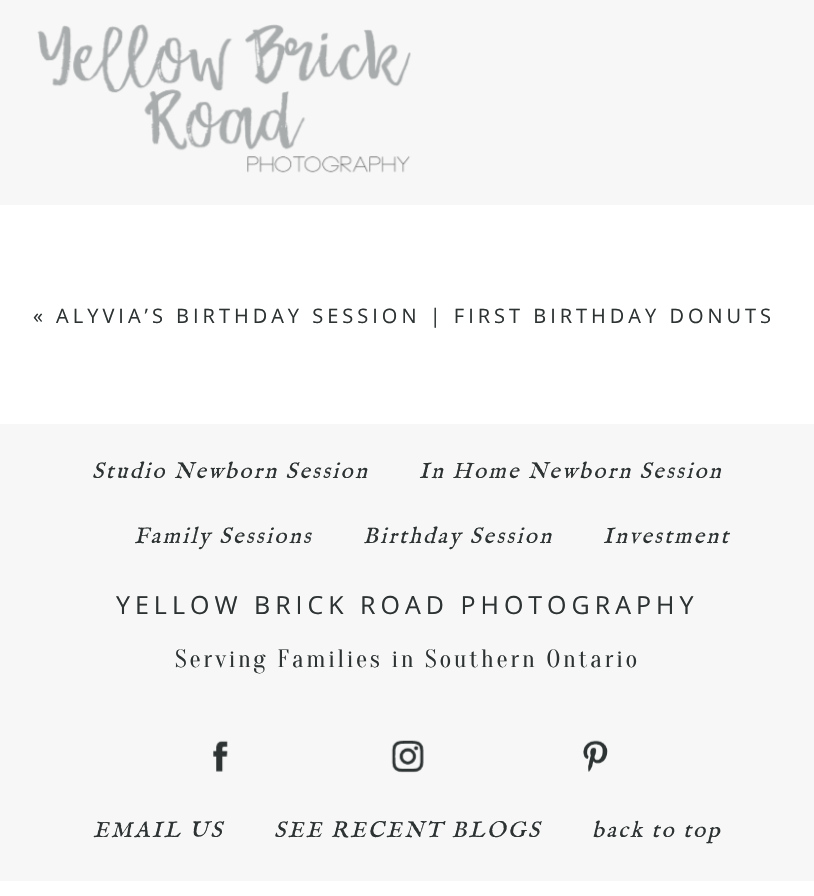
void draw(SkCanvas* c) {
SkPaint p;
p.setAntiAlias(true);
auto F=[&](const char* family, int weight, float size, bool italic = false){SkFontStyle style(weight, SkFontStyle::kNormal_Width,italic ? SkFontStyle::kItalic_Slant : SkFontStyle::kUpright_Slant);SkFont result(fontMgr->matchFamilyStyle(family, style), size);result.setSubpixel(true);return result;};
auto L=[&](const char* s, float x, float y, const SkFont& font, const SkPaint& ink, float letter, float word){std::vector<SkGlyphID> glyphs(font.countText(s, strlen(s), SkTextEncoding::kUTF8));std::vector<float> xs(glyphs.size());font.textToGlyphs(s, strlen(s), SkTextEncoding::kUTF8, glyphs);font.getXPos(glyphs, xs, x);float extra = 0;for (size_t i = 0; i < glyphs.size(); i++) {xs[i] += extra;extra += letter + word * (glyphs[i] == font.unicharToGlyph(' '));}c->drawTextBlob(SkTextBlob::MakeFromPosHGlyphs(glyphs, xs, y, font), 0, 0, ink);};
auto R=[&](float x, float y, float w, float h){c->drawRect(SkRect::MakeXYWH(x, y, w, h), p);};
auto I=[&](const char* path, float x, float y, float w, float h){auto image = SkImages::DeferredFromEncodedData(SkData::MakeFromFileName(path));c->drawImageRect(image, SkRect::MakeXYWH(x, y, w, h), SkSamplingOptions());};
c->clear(0xffffffff);
p.setColor(0xfff7f7f7);
R(0,0,814,205);
I("1.png",37,24,374,149);
auto f1 = F("Open Sans",400,20);
p.setColor(0xff2d3233);
L("« ALYVIA’S BIRTHDAY SESSION | FIRST BIRTHDAY DONUTS",33,323,f1,p,4,0);
p.setColor(0xfff7f7f7);
R(0,424,814,457);
auto f2 = F("IM FELL English",400,22.5,true);
p.setColor(0xff2d3233);
L("Studio Newborn Session",92,478,f2,p,2.25,0);
L("In Home Newborn Session",419,478,f2,p,2.25,0);
L("Family Sessions",134,543,f2,p,2.25,0);
L("Birthday Session",363,543,f2,p,2.25,0);
L("Investment",603,543,f2,p,2.25,0);
auto f3 = F("Open Sans",400,25);
L("YELLOW BRICK ROAD PHOTOGRAPHY",116,614,f3,p,5,0);
auto f4 = F("Oranienbaum",400,25);
L("Serving Families in Southern Ontario",175,667,f4,p,2.75,0);
I("2.png",213,740,15,32);
I("3.png",391,740,33,33);
I("4.png",583,740,25,32);
L("EMAIL US",93,837,f2,p,2.25,0);
L("SEE RECENT BLOGS",274,837,f2,p,2.25,0);
L("back to top",592,837,f2,p,2.25,0);
}
